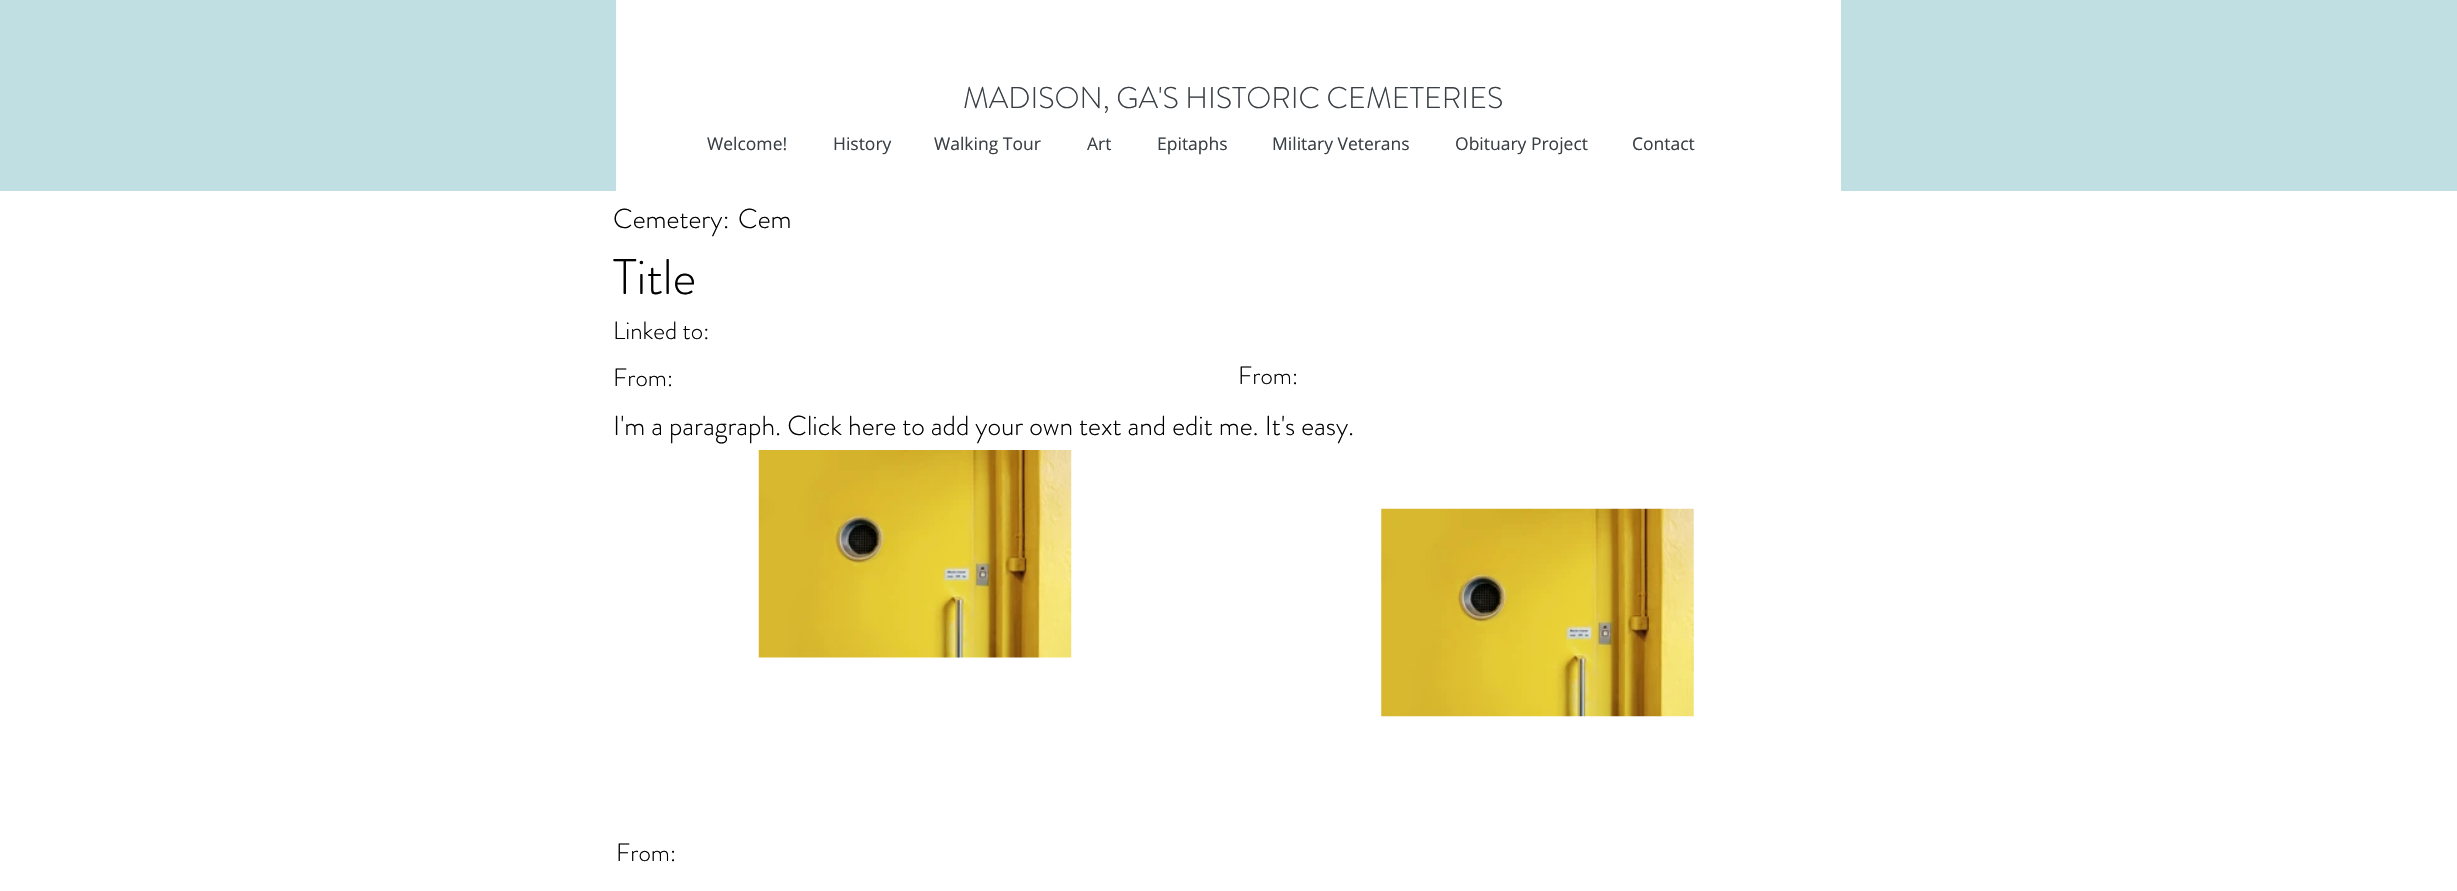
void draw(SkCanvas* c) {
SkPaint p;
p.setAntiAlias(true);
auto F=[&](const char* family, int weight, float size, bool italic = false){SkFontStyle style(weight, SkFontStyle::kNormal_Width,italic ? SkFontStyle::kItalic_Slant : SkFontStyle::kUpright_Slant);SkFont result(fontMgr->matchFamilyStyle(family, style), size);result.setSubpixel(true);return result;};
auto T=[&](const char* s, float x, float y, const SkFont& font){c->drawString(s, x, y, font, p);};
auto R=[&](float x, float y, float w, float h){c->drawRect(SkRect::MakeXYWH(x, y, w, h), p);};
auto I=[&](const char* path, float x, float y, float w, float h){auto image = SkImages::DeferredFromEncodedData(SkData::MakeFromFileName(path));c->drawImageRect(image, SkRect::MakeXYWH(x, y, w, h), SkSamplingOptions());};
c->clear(0xffffffff);
p.setColor(0xffbfdfe3);
R(0,0,2457,191);
p.setColor(0xffffffff);
R(616,0,1225,191);
auto f1 = F("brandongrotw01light",300,30);
p.setColor(0xff393f44);
T("MADISON, GA'S HISTORIC CEMETERIES",963,108,f1);
auto f2 = F("Open Sans",400,17.5);
T("Welcome!",707,150,f2);
T("History",833,150,f2);
T("Walking Tour",934,150,f2);
T("Art",1087,150,f2);
T("Epitaphs",1157,150,f2);
T("Military Veterans",1272,150,f2);
T("Obituary Project",1455,150,f2);
T("Contact",1632,150,f2);
auto f3 = F("brandongrotw01light",300,27.5);
p.setColor(0xff000000);
T("Cemetery:",613,228,f3);
T("Cem",738,228,f3);
auto f4 = F("brandongrotw01light",300,50);
T("Title",613,294,f4);
auto f5 = F("brandongrotw01light",300,25);
T("Linked to:",613,339,f5);
T("From:",613,386,f5);
T("From:",1238,384,f5);
T("I'm a paragraph. Click here to add your own text and edit me. It's easy.",613,435,f3);
I("1.png",758,450,314,208);
I("2.png",1381,508,313,209);
T("From:",616,861,f5);
}
